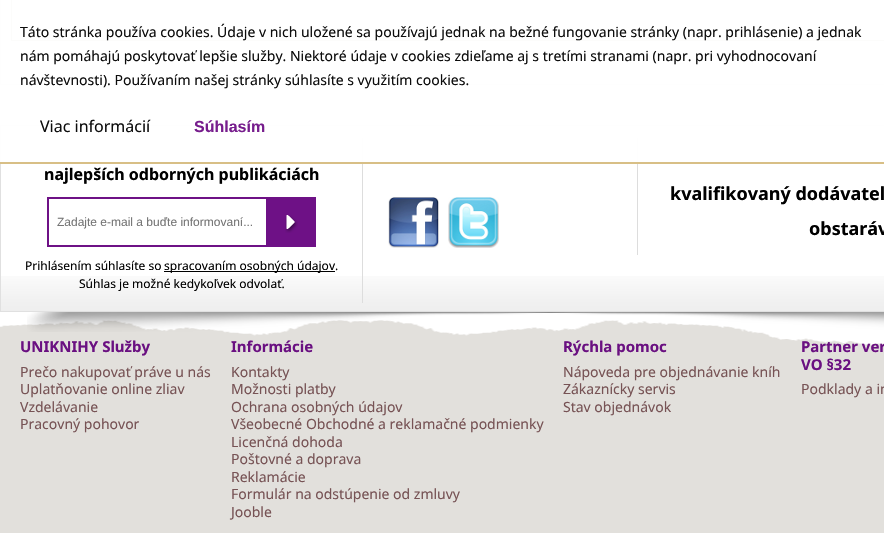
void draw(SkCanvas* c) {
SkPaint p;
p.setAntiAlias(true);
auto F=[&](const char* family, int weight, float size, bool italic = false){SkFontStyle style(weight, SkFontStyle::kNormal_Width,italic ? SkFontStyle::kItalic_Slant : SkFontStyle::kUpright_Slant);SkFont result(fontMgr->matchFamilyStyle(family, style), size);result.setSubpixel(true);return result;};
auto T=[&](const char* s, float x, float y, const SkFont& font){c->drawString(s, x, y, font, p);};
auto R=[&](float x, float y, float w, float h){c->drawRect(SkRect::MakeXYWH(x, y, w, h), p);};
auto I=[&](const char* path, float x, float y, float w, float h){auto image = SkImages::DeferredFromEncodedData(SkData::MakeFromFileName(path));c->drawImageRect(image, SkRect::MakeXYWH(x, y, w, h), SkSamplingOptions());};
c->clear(0xffffffff);
p.setStroke(true);
p.setStrokeWidth(1);
p.setColor(0xffe0e0e0);
c->drawRect(SkRect::MakeXYWH(.5,-.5,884,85),p);
p.setColor(0xffb6b6ac);
c->drawRect(SkRect::MakeXYWH(11.5,-.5,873,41),p);
I("3.png",1,276,883,35);
p.setColor(0xffe0e0e0);
c->drawRect(SkRect::MakeXYWH(.5,125.5,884,186),p);
p.setStroke(false);
p.setColor(0xffdddddd);
R(362,138,1,165);
R(637,138,1,117);
p.setColor(0xf2ffffff);
R(0,0,884,164);
p.setColor(0xf2d6bc7f);
R(0,162,884,2);
auto f1 = F("Noto Sans",400,14);
p.setColor(0xff0d0d0d);
T("Táto stránka používa cookies. Údaje v nich uložené sa používajú jednak na bežné fungovanie stránky (napr. prihlásenie) a jednak",20,37,f1);
T("nám pomáhajú poskytovať lepšie služby. Niektoré údaje v cookies zdieľame aj s tretími stranami (napr. pri vyhodnocovaní",20,61,f1);
T("návštevnosti). Používaním našej stránky súhlasíte s využitím cookies.",20,85,f1);
auto f2 = F("Noto Sans",400,16);
T("Viac informácií",40,132,f2);
auto f3 = F("Liberation Sans",700,16);
p.setColor(0xff771d8d);
T("Súhlasím",194,132,f3);
I("1.png",0,320,884,213);
I("2.png",27,312,857,20);
auto f4 = F("Noto Sans",700,16);
p.setColor(0xff000000);
T("najlepších odborných publikáciách",44,180,f4);
p.setStroke(true);
p.setStrokeWidth(2);
p.setColor(0xff6e1186);
c->drawRect(SkRect::MakeXYWH(48,198,267,48),p);
auto f5 = F("Liberation Sans",400,12);
p.setStroke(false);
p.setColor(0xff757575);
T("Zadajte e-mail a buďte informovaní...",57,226,f5);
p.setColor(0xff6e1186);
R(266,199,48,46);
I("4.png",285,215,13,18);
auto f6 = F("Noto Sans",400,12);
p.setColor(0xff000000);
T("Prihlásením súhlasíte so",25,270,f6);
R(164,271,171,1);
T("spracovaním osobných údajov.",164,270,f6);
T("Súhlas je možné kedykoľvek odvolať.",79,288,f6);
I("5.png",388,197,51,51);
I("6.png",448,197,51,51);
auto f7 = F("Noto Sans",700,18);
T("kvalifikovaný dodávateľ",670,200,f7);
T("obstaráv",809,235,f7);
auto f8 = F("Noto Sans",700,15);
p.setColor(0xff6a1081);
T("UNIKNIHY Služby",20,352,f8);
p.setColor(0xff775355);
T("Prečo nakupovať práve u nás",20,377,f1);
T("Uplatňovanie online zliav",20,394,f1);
T("Vzdelávanie",20,412,f1);
T("Pracovný pohovor",20,429,f1);
p.setColor(0xff6a1081);
T("Informácie",231,352,f8);
p.setColor(0xff775355);
T("Kontakty",231,377,f1);
T("Možnosti platby",231,394,f1);
T("Ochrana osobných údajov",231,412,f1);
T("Všeobecné Obchodné a reklamačné podmienky",231,429,f1);
T("Licenčná dohoda",231,447,f1);
T("Poštovné a doprava",231,464,f1);
T("Reklamácie",231,482,f1);
T("Formulár na odstúpenie od zmluvy",231,499,f1);
T("Jooble",231,517,f1);
p.setColor(0xff6a1081);
T("Rýchla pomoc",563,352,f8);
p.setColor(0xff775355);
T("Nápoveda pre objednávanie kníh",563,377,f1);
T("Zákaznícky servis",563,394,f1);
T("Stav objednávok",563,412,f1);
p.setColor(0xff6a1081);
T("Partner ver",801,352,f8);
T("VO §32",801,370,f8);
p.setColor(0xff775355);
T("Podklady a in",801,394,f1);
}
